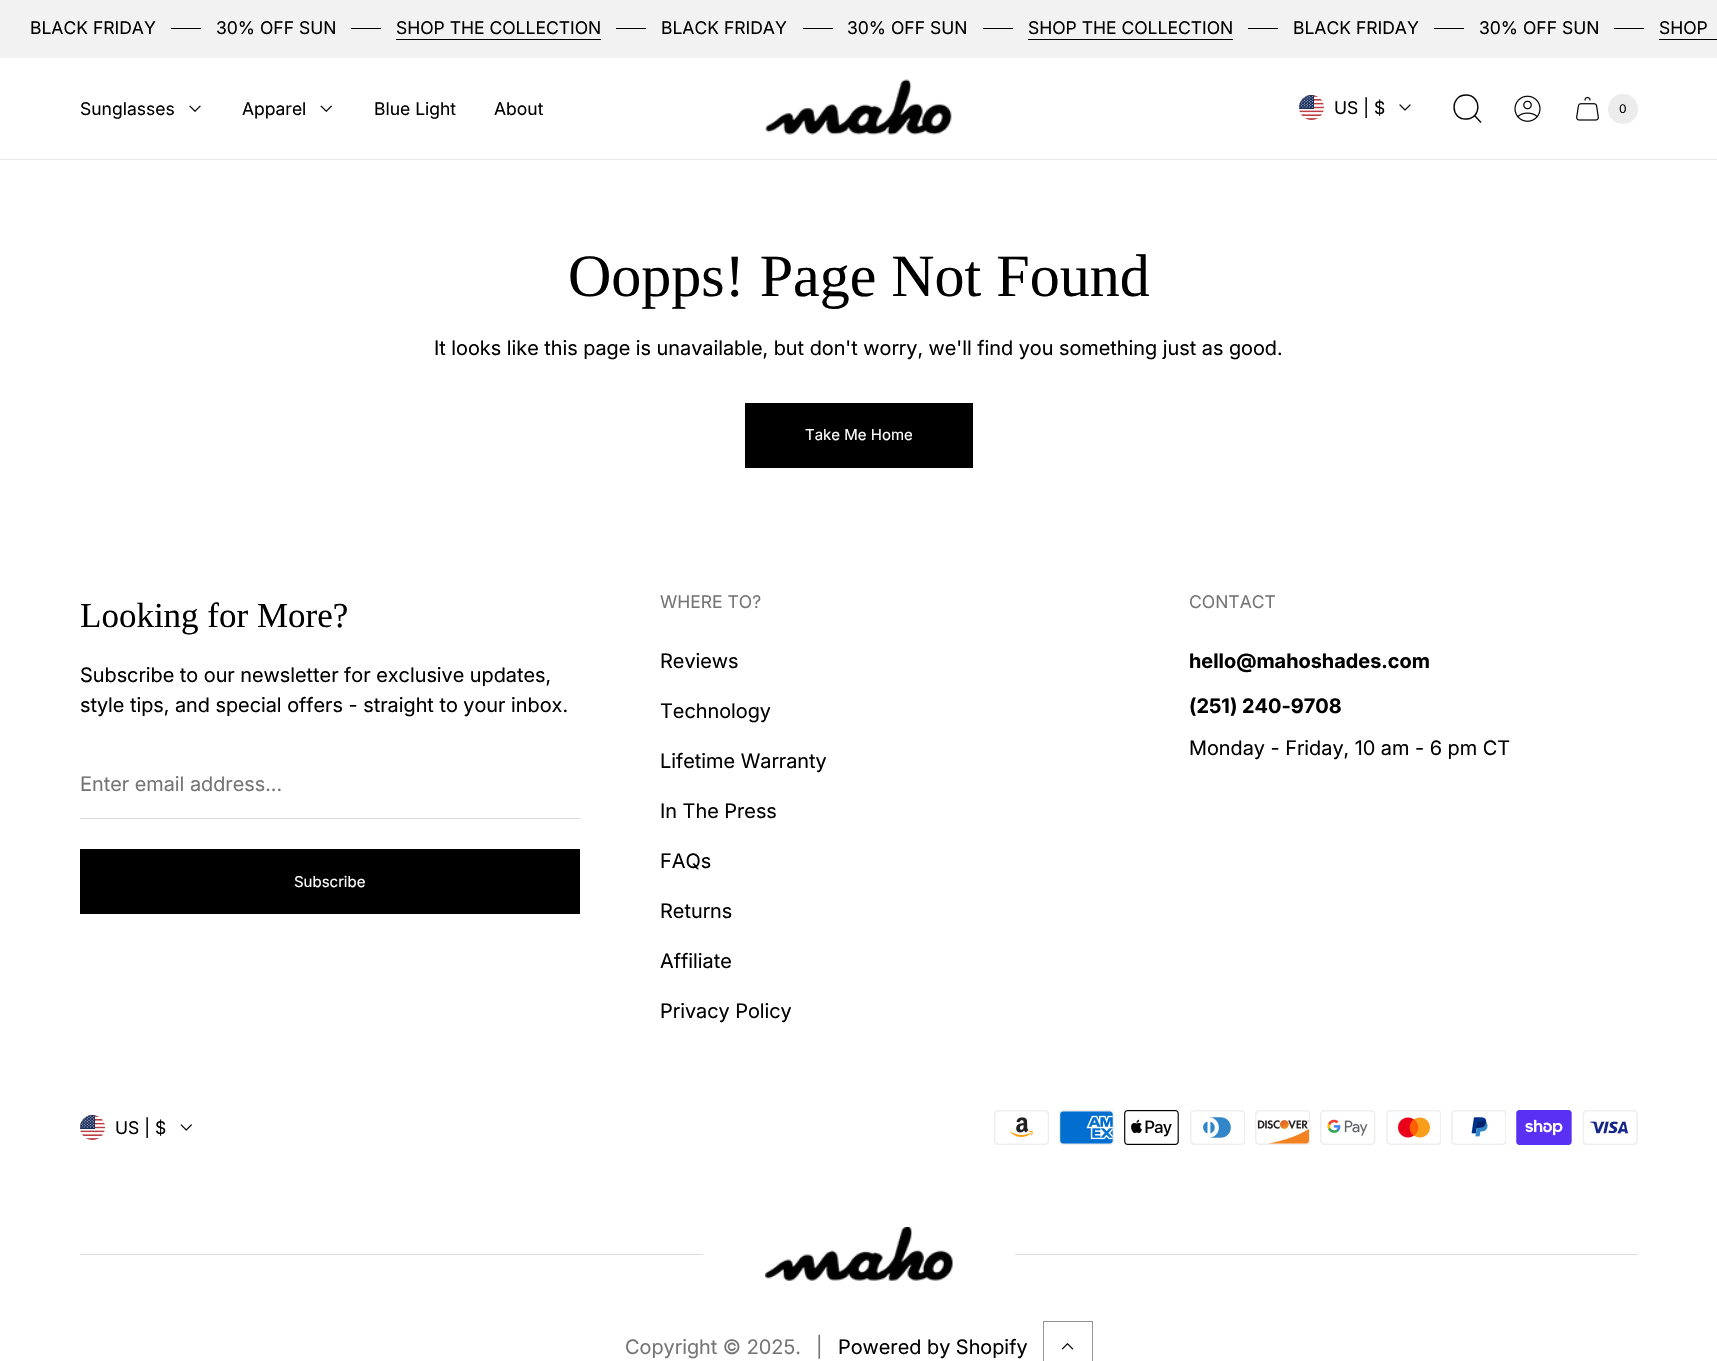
void draw(SkCanvas* c) {
SkPaint p;
p.setAntiAlias(true);
auto F=[&](const char* family, int weight, float size, bool italic = false){SkFontStyle style(weight, SkFontStyle::kNormal_Width,italic ? SkFontStyle::kItalic_Slant : SkFontStyle::kUpright_Slant);SkFont result(fontMgr->matchFamilyStyle(family, style), size);result.setSubpixel(true);return result;};
auto T=[&](const char* s, float x, float y, const SkFont& font){c->drawString(s, x, y, font, p);};
auto R=[&](float x, float y, float w, float h){c->drawRect(SkRect::MakeXYWH(x, y, w, h), p);};
auto I=[&](const char* path, float x, float y, float w, float h){auto image = SkImages::DeferredFromEncodedData(SkData::MakeFromFileName(path));c->drawImageRect(image, SkRect::MakeXYWH(x, y, w, h), SkSamplingOptions());};
auto P=[&](const char* data, bool evenOdd = false){SkPath result = *SkParsePath::FromSVGString(data);if (evenOdd) result.setFillType(SkPathFillType::kEvenOdd);return result;};
c->clear(0xffffffff);
p.setColor(0xfff2f2f2);
R(0,0,1717,58);
auto f1 = F("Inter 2",400,17.5);
p.setColor(0xff000000);
T("BLACK FRIDAY",30,34,f1);
R(171,28,30,1);
T("30% OFF SUN",216,34,f1);
R(351,28,30,1);
T("SHOP THE COLLECTION",396,34,f1);
R(396,39,205,1);
R(616,28,30,1);
T("BLACK FRIDAY",661,34,f1);
R(803,28,30,1);
T("30% OFF SUN",847,34,f1);
R(983,28,30,1);
T("SHOP THE COLLECTION",1028,34,f1);
R(1028,39,205,1);
R(1248,28,30,1);
T("BLACK FRIDAY",1293,34,f1);
R(1434,28,30,1);
T("30% OFF SUN",1479,34,f1);
R(1614,28,30,1);
T("SHOP",1659,34,f1);
R(1659,39,58,1);
p.setColor(0xffe9e9e9);
R(0,159,1717,1);
p.setColor(0xff000000);
T("Sunglasses",80,115,f1);
I("1.png",189,105,12,7);
T("Apparel",242,115,f1);
I("2.png",320,105,12,7);
T("Blue Light",374,115,f1);
T("About",494,115,f1);
I("3.png",765,79,187,56);
I("4.png",1299,95,25,25);
T("US | $",1334,114,f1);
I("5.png",1399,104,12,7);
p.setStroke(true);
p.setStrokeWidth(1.4);
c->drawPath(P("M1474.5 115.5l6.5 7m-15-27.5c15.5 0 16 23.5 .5 24c-16.5 1-16.5-24-.5-24z"),p);
I("6.png",1514,95,27,27);
I("7.png",1576,96,23,25);
p.setStroke(false);
p.setColor(0xffececec);
c->drawCircle(1623,109,15,p);
auto f2 = F("Inter 2",400,12);
p.setColor(0xff000000);
T("0",1619,113,f2);
auto f3 = F("Liberation Serif",400,60);
T("Oopps! Page Not Found",568,296,f3);
auto f4 = F("Inter",400,20);
T("It looks like this page is unavailable, but don't worry, we'll find you something just as good.",434,355,f4);
R(745,403,228,65);
auto f5 = F("Inter 2",400,15);
p.setColor(0xffffffff);
T("Take Me Home",805,440,f5);
auto f6 = F("Liberation Serif",400,35);
p.setColor(0xff000000);
T("Looking for More?",80,627,f6);
T("Subscribe to our newsletter for exclusive updates,",80,682,f4);
T("style tips, and special offers - straight to your inbox.",80,712,f4);
p.setColor(0xffdcdcdc);
R(80,818,500,1);
p.setColor(0xff757575);
T("Enter email address...",80,791,f4);
p.setColor(0xff000000);
R(80,849,500,65);
p.setColor(0xffffffff);
T("Subscribe",294,887,f5);
p.setColor(0xff757575);
T("WHERE TO?",660,608,f1);
p.setColor(0xff000000);
T("Reviews",660,668,f4);
T("Technology",660,718,f4);
T("Lifetime Warranty",660,768,f4);
T("In The Press",660,818,f4);
T("FAQs",660,868,f4);
T("Returns",660,918,f4);
T("Affiliate",660,968,f4);
T("Privacy Policy",660,1018,f4);
p.setColor(0xff757575);
T("CONTACT",1189,608,f1);
auto f7 = F("Inter",700,20);
p.setColor(0xff000000);
T("hello@mahoshades.com",1189,668,f7);
T("(251) 240-9708",1189,713,f7);
T("Monday - Friday, 10 am - 6 pm CT",1189,755,f4);
I("8.png",80,1115,25,25);
T("US | $",115,1134,f1);
I("9.png",180,1124,12,7);
I("10.png",994,1110,55,35);
I("11.png",1059,1110,55,35);
I("12.png",1124,1110,55,35);
I("13.png",1190,1110,55,35);
I("14.png",1255,1110,55,35);
I("15.png",1320,1110,56,35);
I("16.png",1386,1110,55,35);
I("17.png",1451,1110,55,35);
I("18.png",1516,1110,56,35);
I("19.png",1583,1110,55,35);
p.setColor(0xffdcdcdc);
R(80,1254,623,1);
I("20.png",765,1227,188,54);
R(1015,1254,623,1);
p.setColor(0xff757575);
T("Copyright © 2025.",625,1354,f4);
T("|",816,1354,f4);
p.setColor(0xff000000);
T("Powered by Shopify",838,1354,f4);
p.setStroke(true);
p.setStrokeWidth(1);
p.setColor(0xff949494);
c->drawRect(SkRect::MakeXYWH(1043.5,1321.5,49,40),p);
I("21.png",1061,1343,13,7);
}
